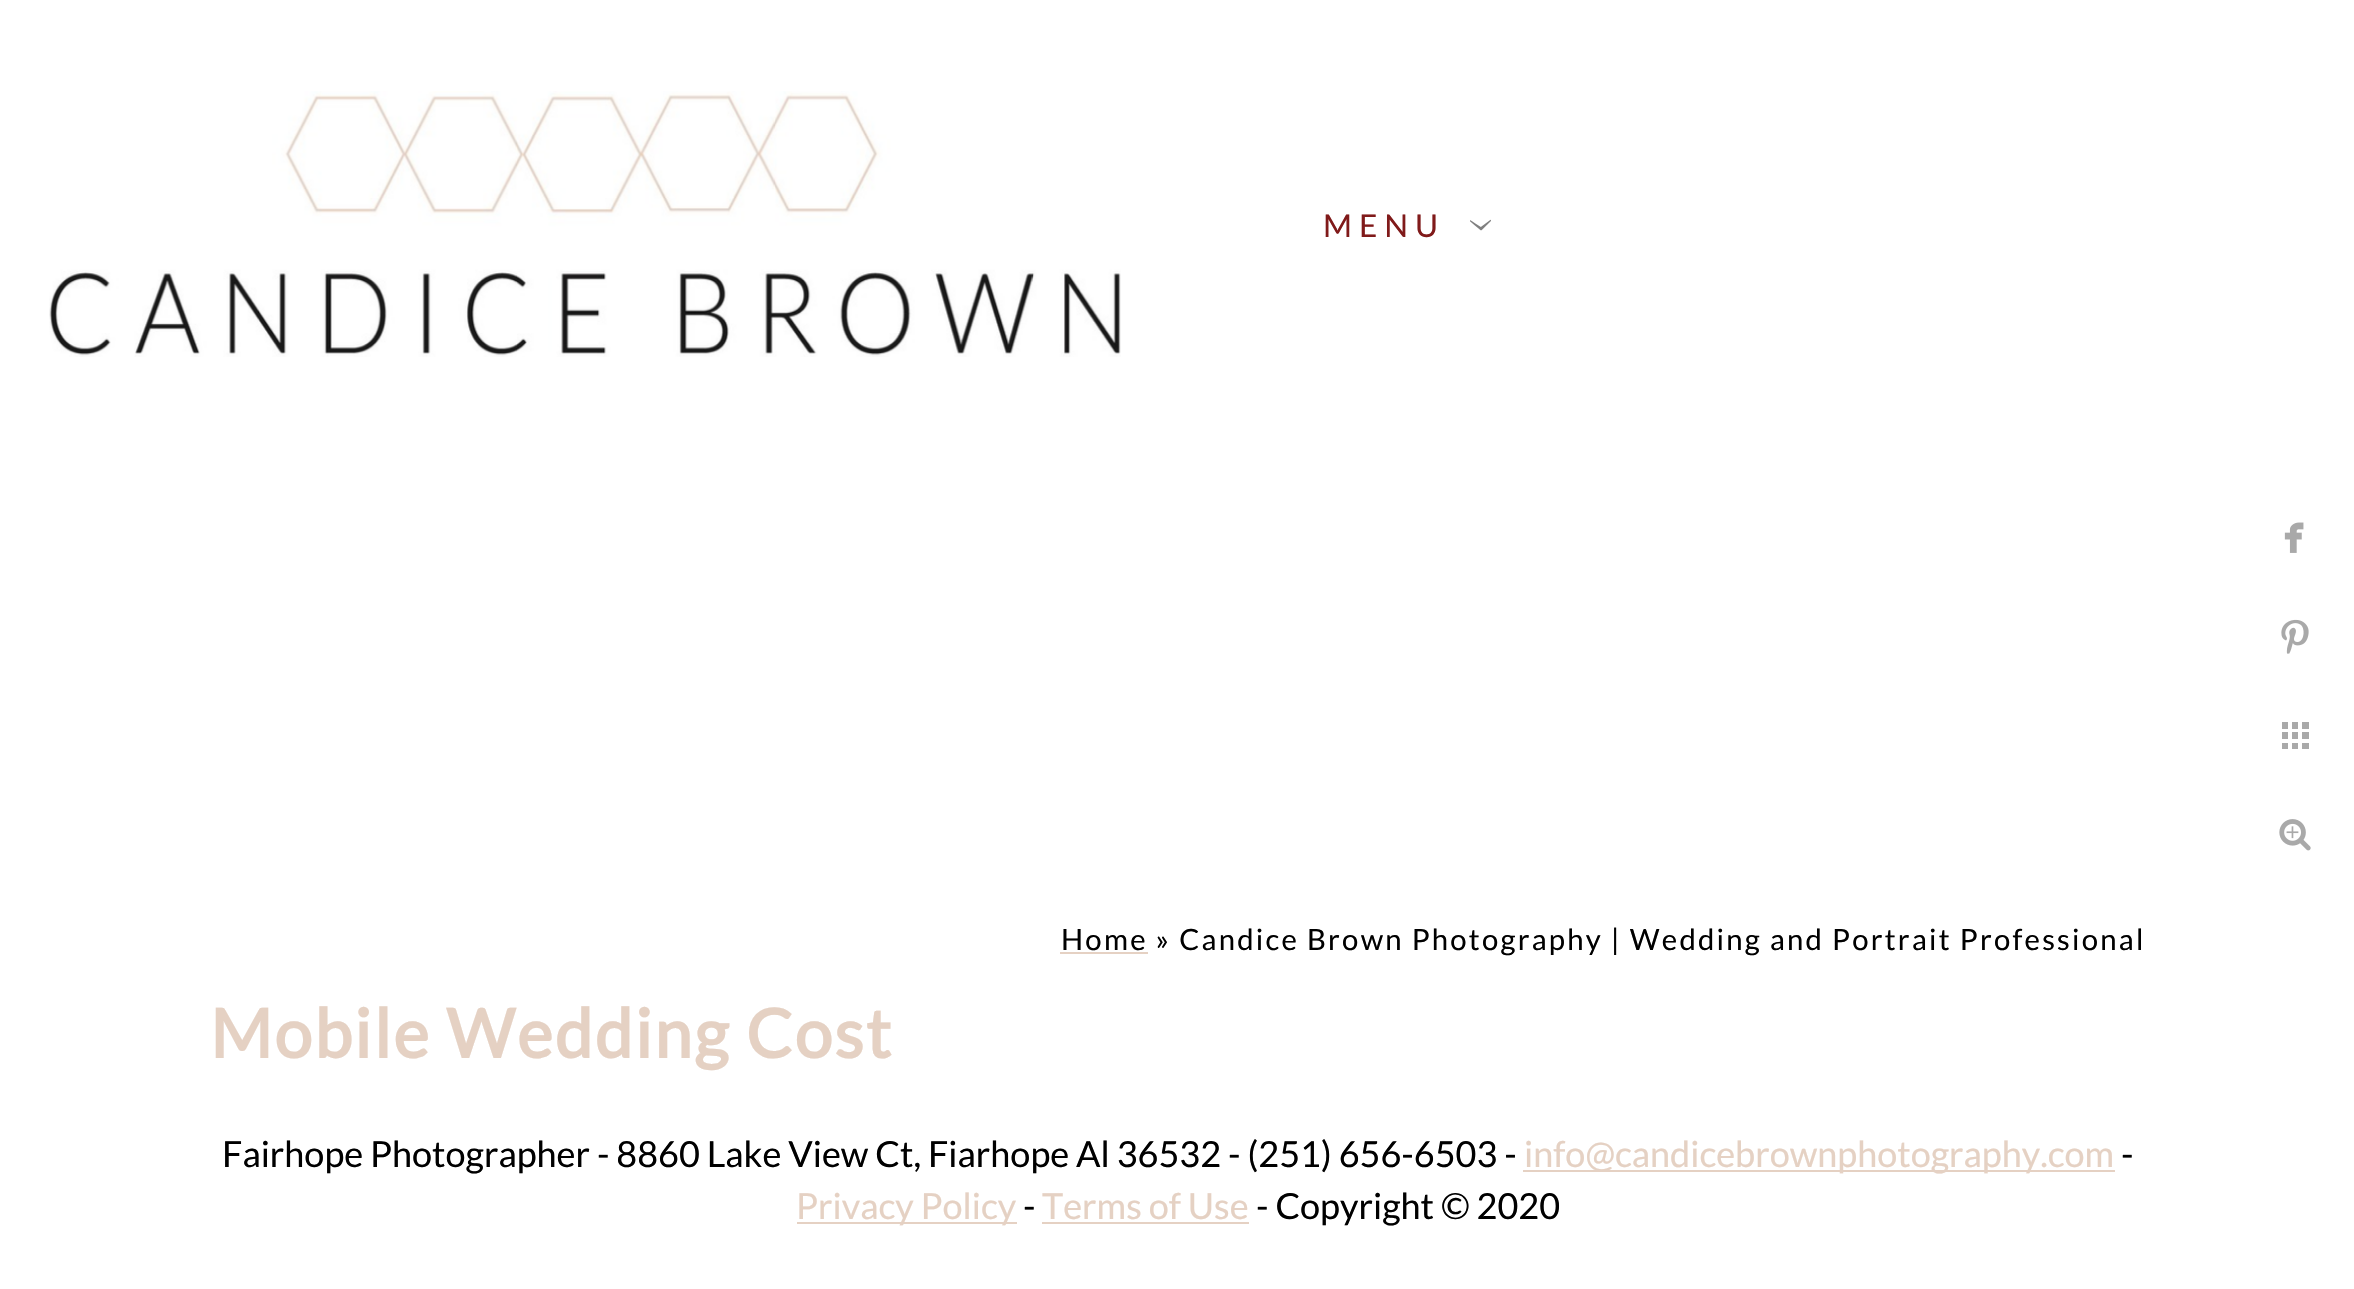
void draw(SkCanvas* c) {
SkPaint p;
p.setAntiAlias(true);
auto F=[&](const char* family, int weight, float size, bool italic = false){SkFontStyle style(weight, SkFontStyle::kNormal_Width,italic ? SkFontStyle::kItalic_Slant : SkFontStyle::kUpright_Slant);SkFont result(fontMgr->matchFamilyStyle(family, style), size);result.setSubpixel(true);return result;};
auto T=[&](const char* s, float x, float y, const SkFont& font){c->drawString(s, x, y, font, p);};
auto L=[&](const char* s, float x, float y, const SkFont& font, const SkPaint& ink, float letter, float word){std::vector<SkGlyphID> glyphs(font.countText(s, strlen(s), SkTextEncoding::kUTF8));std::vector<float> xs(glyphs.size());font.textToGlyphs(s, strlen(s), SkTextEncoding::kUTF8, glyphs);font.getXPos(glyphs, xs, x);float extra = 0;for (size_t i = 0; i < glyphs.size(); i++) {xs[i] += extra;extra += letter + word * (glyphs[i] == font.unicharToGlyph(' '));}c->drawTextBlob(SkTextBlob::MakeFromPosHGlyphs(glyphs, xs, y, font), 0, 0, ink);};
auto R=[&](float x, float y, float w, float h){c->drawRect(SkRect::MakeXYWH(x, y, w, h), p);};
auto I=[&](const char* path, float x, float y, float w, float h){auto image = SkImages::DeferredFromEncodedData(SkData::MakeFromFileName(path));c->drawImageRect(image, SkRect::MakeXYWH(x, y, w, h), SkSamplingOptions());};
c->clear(0xffffffff);
I("1.png",49,91,1072,266);
auto f1 = F("Lato",400,31.5);
p.setColor(0xff801a1a);
L("MENU",1323,237,f1,p,7,0);
I("2.png",1470,219,21,12);
I("3.png",2284,522,20,31);
I("4.png",2281,619,28,35);
I("5.png",2282,722,27,27);
I("6.png",2279,819,32,32);
p.setColor(0xffe5d1c3);
R(1060,952,88,2);
auto f2 = F("Lato",400,29.25);
p.setColor(0xff000000);
L("Home » Candice Brown Photography | Wedding and Portrait Professional",1061,950,f2,p,2.25,0);
auto f3 = F("Lato",700,67.5);
p.setColor(0xffe5d1c3);
L("Mobile Wedding Cost",210,1058,f3,p,2.25,0);
auto f4 = F("Lato",400,36);
p.setColor(0xff000000);
T("Fairhope Photographer - 8860 Lake View Ct, Fiarhope Al 36532 - (251) 656-6503 -",222,1167,f4);
p.setColor(0xffe5d1c3);
R(1523,1170,592,2);
T("info@candicebrownphotography.com",1524,1167,f4);
p.setColor(0xff000000);
T("-",2121,1167,f4);
p.setColor(0xffe5d1c3);
R(797,1222,220,2);
T("Privacy Policy",796,1219,f4);
p.setColor(0xff000000);
T("-",1023,1219,f4);
p.setColor(0xffe5d1c3);
T("Terms of Use",1042,1219,f4);
R(1042,1222,207,2);
p.setColor(0xff000000);
T("- Copyright © 2020",1256,1219,f4);
}
